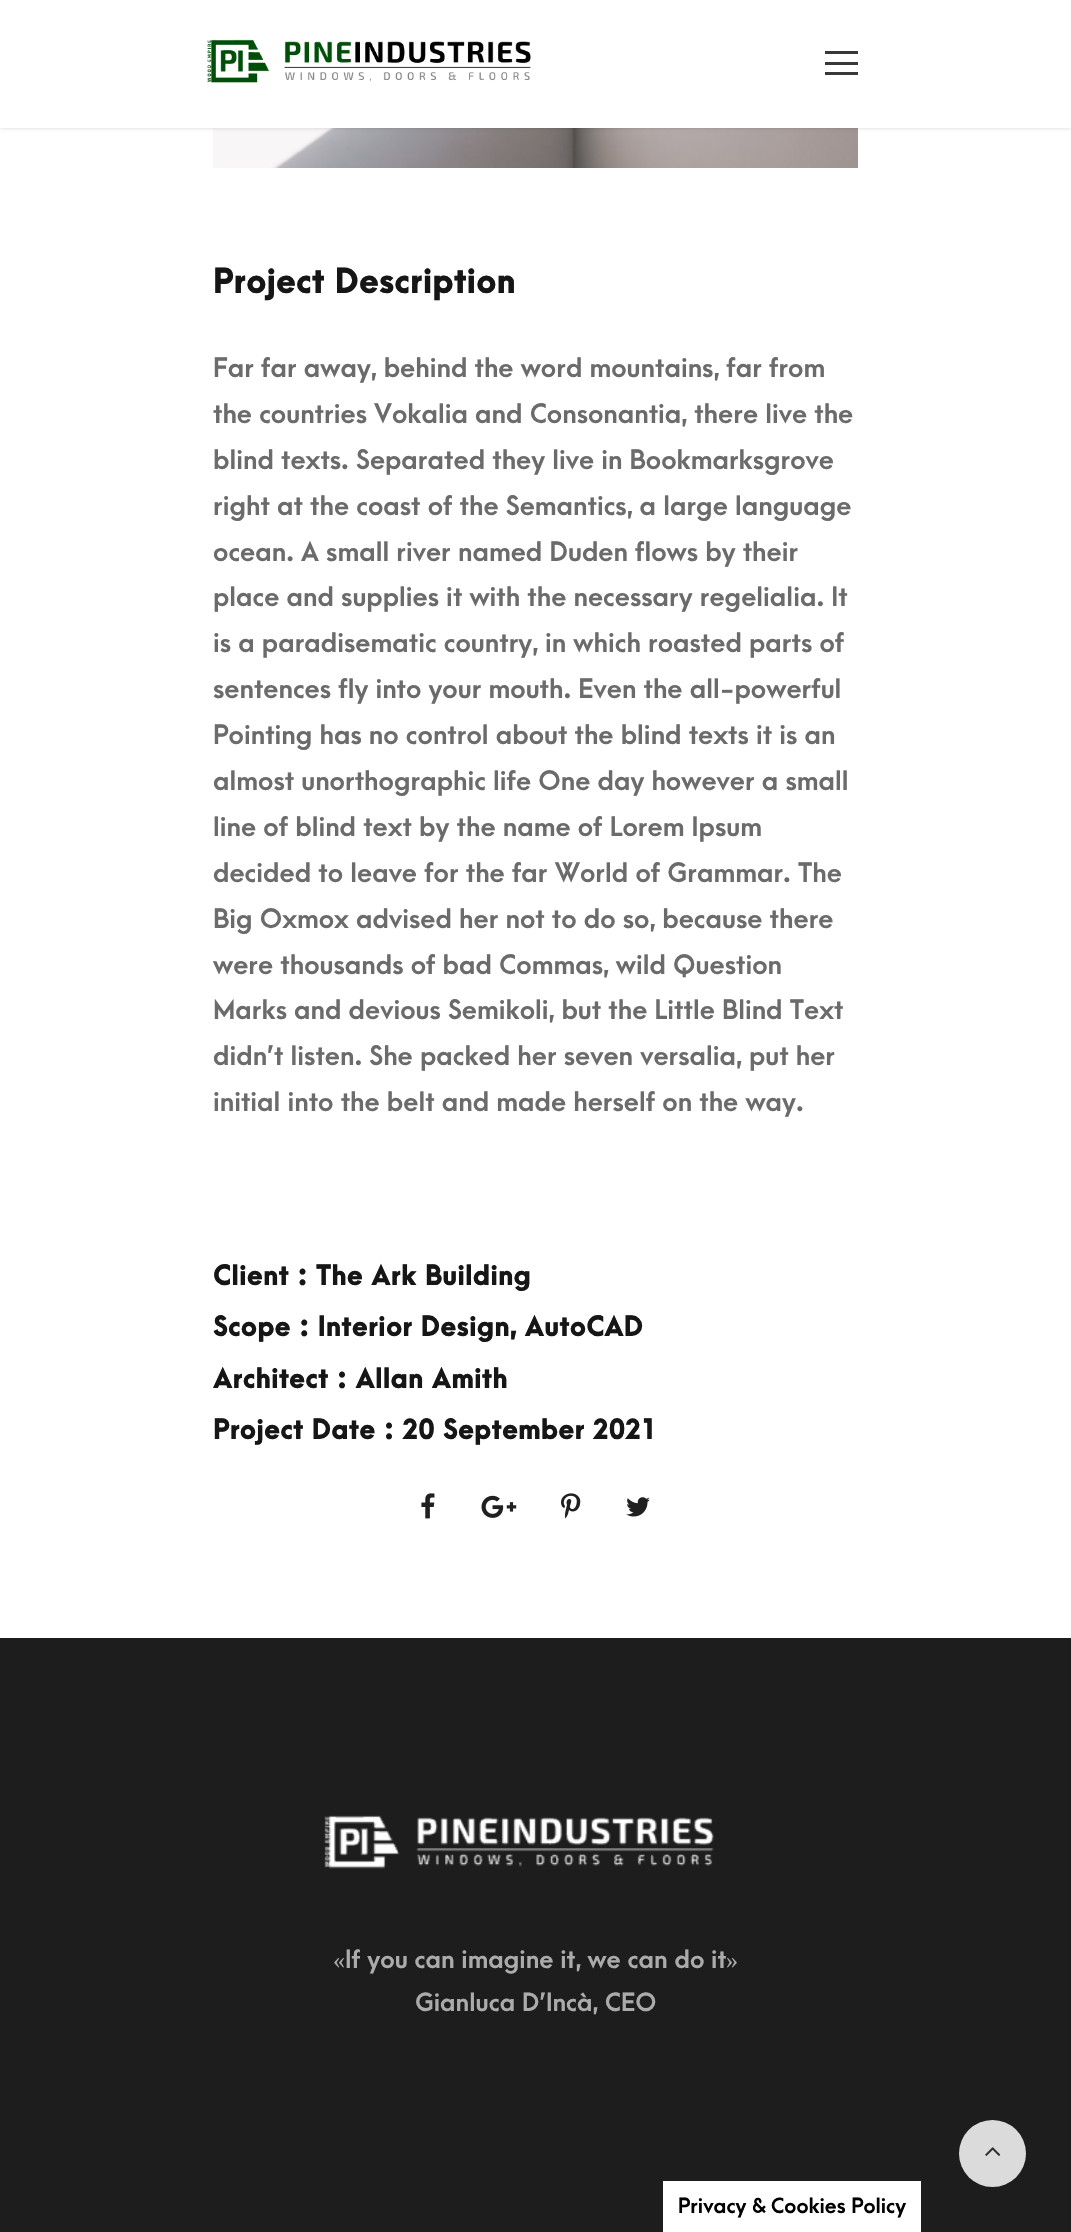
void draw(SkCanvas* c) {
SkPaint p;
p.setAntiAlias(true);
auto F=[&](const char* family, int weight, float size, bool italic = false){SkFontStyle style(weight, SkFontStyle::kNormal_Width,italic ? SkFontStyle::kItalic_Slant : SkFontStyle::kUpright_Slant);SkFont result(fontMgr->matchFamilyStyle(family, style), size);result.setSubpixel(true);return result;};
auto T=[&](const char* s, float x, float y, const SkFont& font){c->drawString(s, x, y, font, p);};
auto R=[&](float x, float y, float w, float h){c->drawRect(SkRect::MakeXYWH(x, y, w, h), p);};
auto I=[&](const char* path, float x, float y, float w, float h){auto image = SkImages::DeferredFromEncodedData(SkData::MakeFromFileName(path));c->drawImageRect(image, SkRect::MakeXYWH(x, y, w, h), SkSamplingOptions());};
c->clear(0xffffffff);
I("2.png",213,128,645,40);
p.setColor(0x1a000000);
p.setMaskFilter(SkMaskFilter::MakeBlur(kNormal_SkBlurStyle, 1.5));
c->drawRect(SkRect::MakeXYWH(0,2,1071,127),p);
p.setMaskFilter(nullptr);
p.setColor(0xffffffff);
R(0,0,1071,128);
I("1.png",207,39,324,44);
p.setColor(0xff383838);
R(825,51,33,3);
R(825,62,33,3);
R(825,72,33,3);
auto f1 = F("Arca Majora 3",900,31.5);
p.setColor(0xff161616);
T("Project Description",213,293,f1);
auto f2 = F("Arca Majora 3",700,25.5);
p.setColor(0xff6b6b6b);
T("Far far away, behind the word mountains, far from",213,377,f2);
T("the countries Vokalia and Consonantia, there live the",213,423,f2);
T("blind texts. Separated they live in Bookmarksgrove",213,469,f2);
T("right at the coast of the Semantics, a large language",213,515,f2);
T("ocean. A small river named Duden flows by their",213,561,f2);
T("place and supplies it with the necessary regelialia. It",213,606,f2);
T("is a paradisematic country, in which roasted parts of",213,652,f2);
T("sentences fly into your mouth. Even the all-powerful",213,698,f2);
T("Pointing has no control about the blind texts it is an",213,744,f2);
T("almost unorthographic life One day however a small",213,790,f2);
T("line of blind text by the name of Lorem Ipsum",213,836,f2);
T("decided to leave for the far World of Grammar. The",213,882,f2);
T("Big Oxmox advised her not to do so, because there",213,928,f2);
T("were thousands of bad Commas, wild Question",213,974,f2);
T("Marks and devious Semikoli, but the Little Blind Text",213,1019,f2);
T("didn’t listen. She packed her seven versalia, put her",213,1065,f2);
T("initial into the belt and made herself on the way.",213,1111,f2);
auto f3 = F("Arca Majora 3",900,25.5);
p.setColor(0xff161616);
T("Client : The Ark Building",213,1285,f3);
T("Scope : Interior Design, AutoCAD",213,1336,f3);
T("Architect : Allan Amith",213,1388,f3);
T("Project Date : 20 September 2021",213,1439,f3);
I("3.png",421,1493,14,26);
I("4.png",481,1495,36,23);
I("5.png",561,1493,20,26);
I("6.png",626,1497,24,20);
p.setColor(0xff1d1d1d);
R(0,1638,1071,594);
I("7.png",324,1815,390,54);
auto f4 = F("Liberation Serif",400,24);
p.setColor(0xffababab);
T("«",333,1968,f4);
auto f5 = F("Arca Majora 3",700,24);
T("If you can imagine it, we can do it",345,1968,f5);
T("»",726,1968,f4);
T("Gianluca D’Incà, CEO",415,2011,f5);
p.setColor(0xffdbdbdb);
c->drawCircle(992.5,2153.5,33.5,p);
I("8.png",985,2147,16,9);
p.setColor(0xffffffff);
R(663,2181,258,51);
auto f6 = F("Arca Majora 3",700,20);
p.setColor(0xff000000);
T("Privacy & Cookies Policy",678,2213,f6);
}
